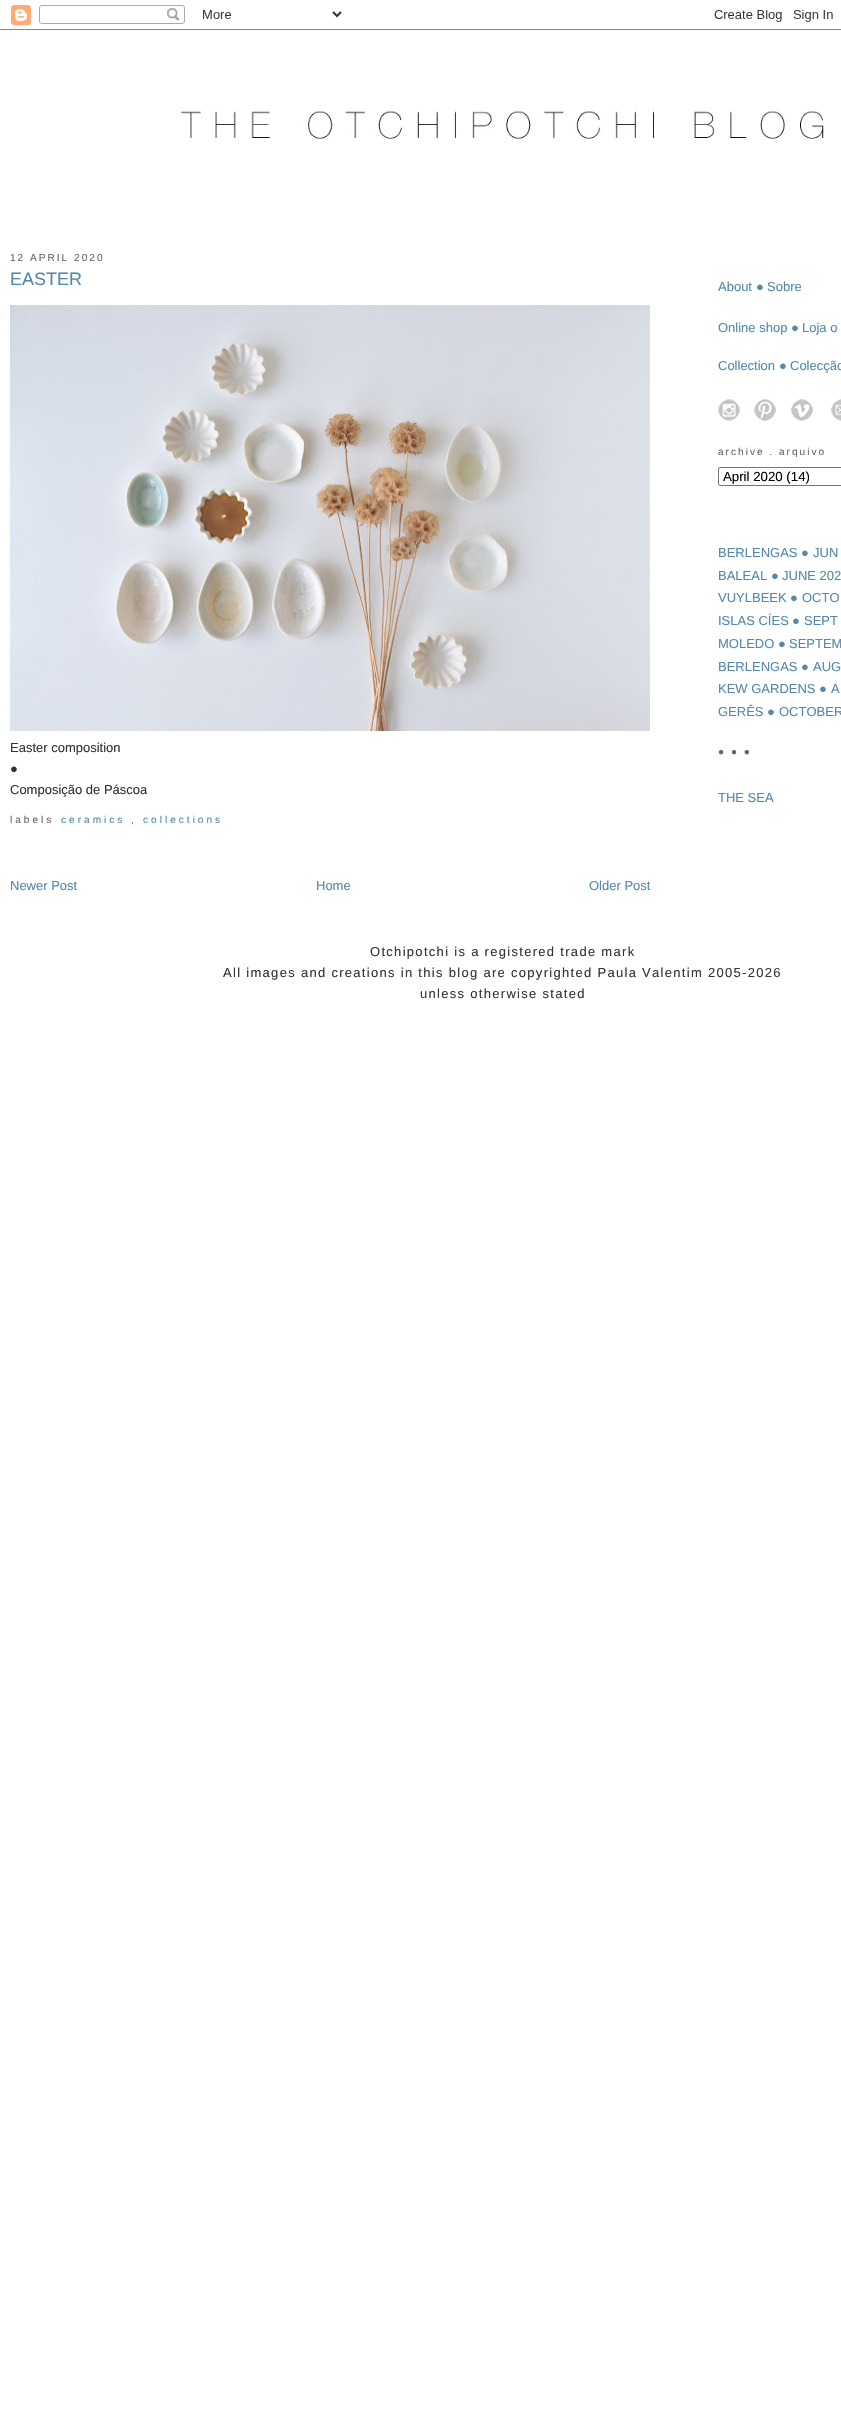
void draw(SkCanvas* c) {
SkPaint p;
p.setAntiAlias(true);
auto F=[&](const char* family, int weight, float size, bool italic = false){SkFontStyle style(weight, SkFontStyle::kNormal_Width,italic ? SkFontStyle::kItalic_Slant : SkFontStyle::kUpright_Slant);SkFont result(fontMgr->matchFamilyStyle(family, style), size);result.setSubpixel(true);return result;};
auto T=[&](const char* s, float x, float y, const SkFont& font){c->drawString(s, x, y, font, p);};
auto L=[&](const char* s, float x, float y, const SkFont& font, const SkPaint& ink, float letter, float word){std::vector<SkGlyphID> glyphs(font.countText(s, strlen(s), SkTextEncoding::kUTF8));std::vector<float> xs(glyphs.size());font.textToGlyphs(s, strlen(s), SkTextEncoding::kUTF8, glyphs);font.getXPos(glyphs, xs, x);float extra = 0;for (size_t i = 0; i < glyphs.size(); i++) {xs[i] += extra;extra += letter + word * (glyphs[i] == font.unicharToGlyph(' '));}c->drawTextBlob(SkTextBlob::MakeFromPosHGlyphs(glyphs, xs, y, font), 0, 0, ink);};
auto I=[&](const char* path, float x, float y, float w, float h){auto image = SkImages::DeferredFromEncodedData(SkData::MakeFromFileName(path));c->drawImageRect(image, SkRect::MakeXYWH(x, y, w, h), SkSamplingOptions());};
c->clear(0xffffffff);
I("1.png",0,5,841,25);
I("2.png",181,111,643,28);
auto f1 = F("Liberation Sans",400,10.1);
p.setColor(0xff666666);
L("12 APRIL 2020",10,261,f1,p,2,0);
auto f2 = F("Arimo",400,18);
p.setColor(0xff5588aa);
T("EASTER",10,285,f2);
I("3.png",10,305,640,426);
auto f3 = F("Arimo",400,13);
p.setColor(0xff333333);
T("Easter composition",10,752,f3);
auto f4 = F("Liberation Serif",400,13);
T("●",10,773,f4);
T("Composição de Páscoa",10,794,f3);
p.setColor(0xff666666);
L("labels",10,823,f1,p,3,0);
p.setColor(0xff5588aa);
L("ceramics",61,823,f1,p,3,0);
p.setColor(0xff666666);
L(",",131,823,f1,p,3,0);
p.setColor(0xff5588aa);
L("collections",143,823,f1,p,3,0);
T("Newer Post",10,890,f3);
T("Home",316,890,f3);
T("Older Post",589,890,f3);
T("About",718,291,f3);
T("●",756,291,f4);
T("Sobre",767,291,f3);
T("Online shop",718,332,f3);
T("●",791,332,f4);
T("Loja o",802,332,f3);
T("Collection",718,370,f3);
T("●",779,370,f4);
T("Colecção",790,370,f3);
I("4.png",718,399,22,22);
I("5.png",754,399,22,22);
I("6.png",791,399,22,22);
I("7.png",831,399,10,22);
p.setColor(0xff666666);
L("archive . arquivo",718,455,f1,p,2,0);
p.setStroke(true);
p.setStrokeWidth(1);
p.setColor(0xff767676);
c->drawRoundRect(SkRect::MakeXYWH(718.5,467.5,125,18),1.5,1.5,p);
auto f5 = F("Liberation Sans",400,13.25);
p.setStroke(false);
p.setColor(0xff000000);
T("April 2020 (14)",723,481,f5);
p.setColor(0xff5588aa);
T("BERLENGAS",718,557,f3);
T("●",801,557,f4);
T("JUN",813,557,f3);
T("BALEAL",718,580,f3);
T("●",771,580,f4);
T("JUNE 202",782,580,f3);
T("VUYLBEEK",718,602,f3);
T("●",790,602,f4);
T("OCTO",802,602,f3);
T("ISLAS CÍES",718,625,f3);
T("●",792,625,f4);
T("SEPT",804,625,f3);
T("MOLEDO",718,648,f3);
T("●",778,648,f4);
T("SEPTEM",789,648,f3);
T("BERLENGAS",718,671,f3);
T("●",801,671,f4);
T("AUG",813,671,f3);
T("KEW GARDENS",718,693,f3);
T("●",819,693,f4);
T("A",831,693,f3);
T("GERÊS",718,716,f3);
T("●",767,716,f4);
T("OCTOBER",779,716,f3);
p.setColor(0xff666666);
L("● ● ●",718,755,f1,p,2,0);
p.setColor(0xff5588aa);
T("THE SEA",718,802,f3);
p.setColor(0xff333333);
L("Otchipotchi is a registered trade mark",370,956,f3,p,1.3,0);
L("All images and creations in this blog are copyrighted Paula Valentim 2005-2026",223,977,f3,p,1.3,0);
L("unless otherwise stated",420,998,f3,p,1.3,0);
}
